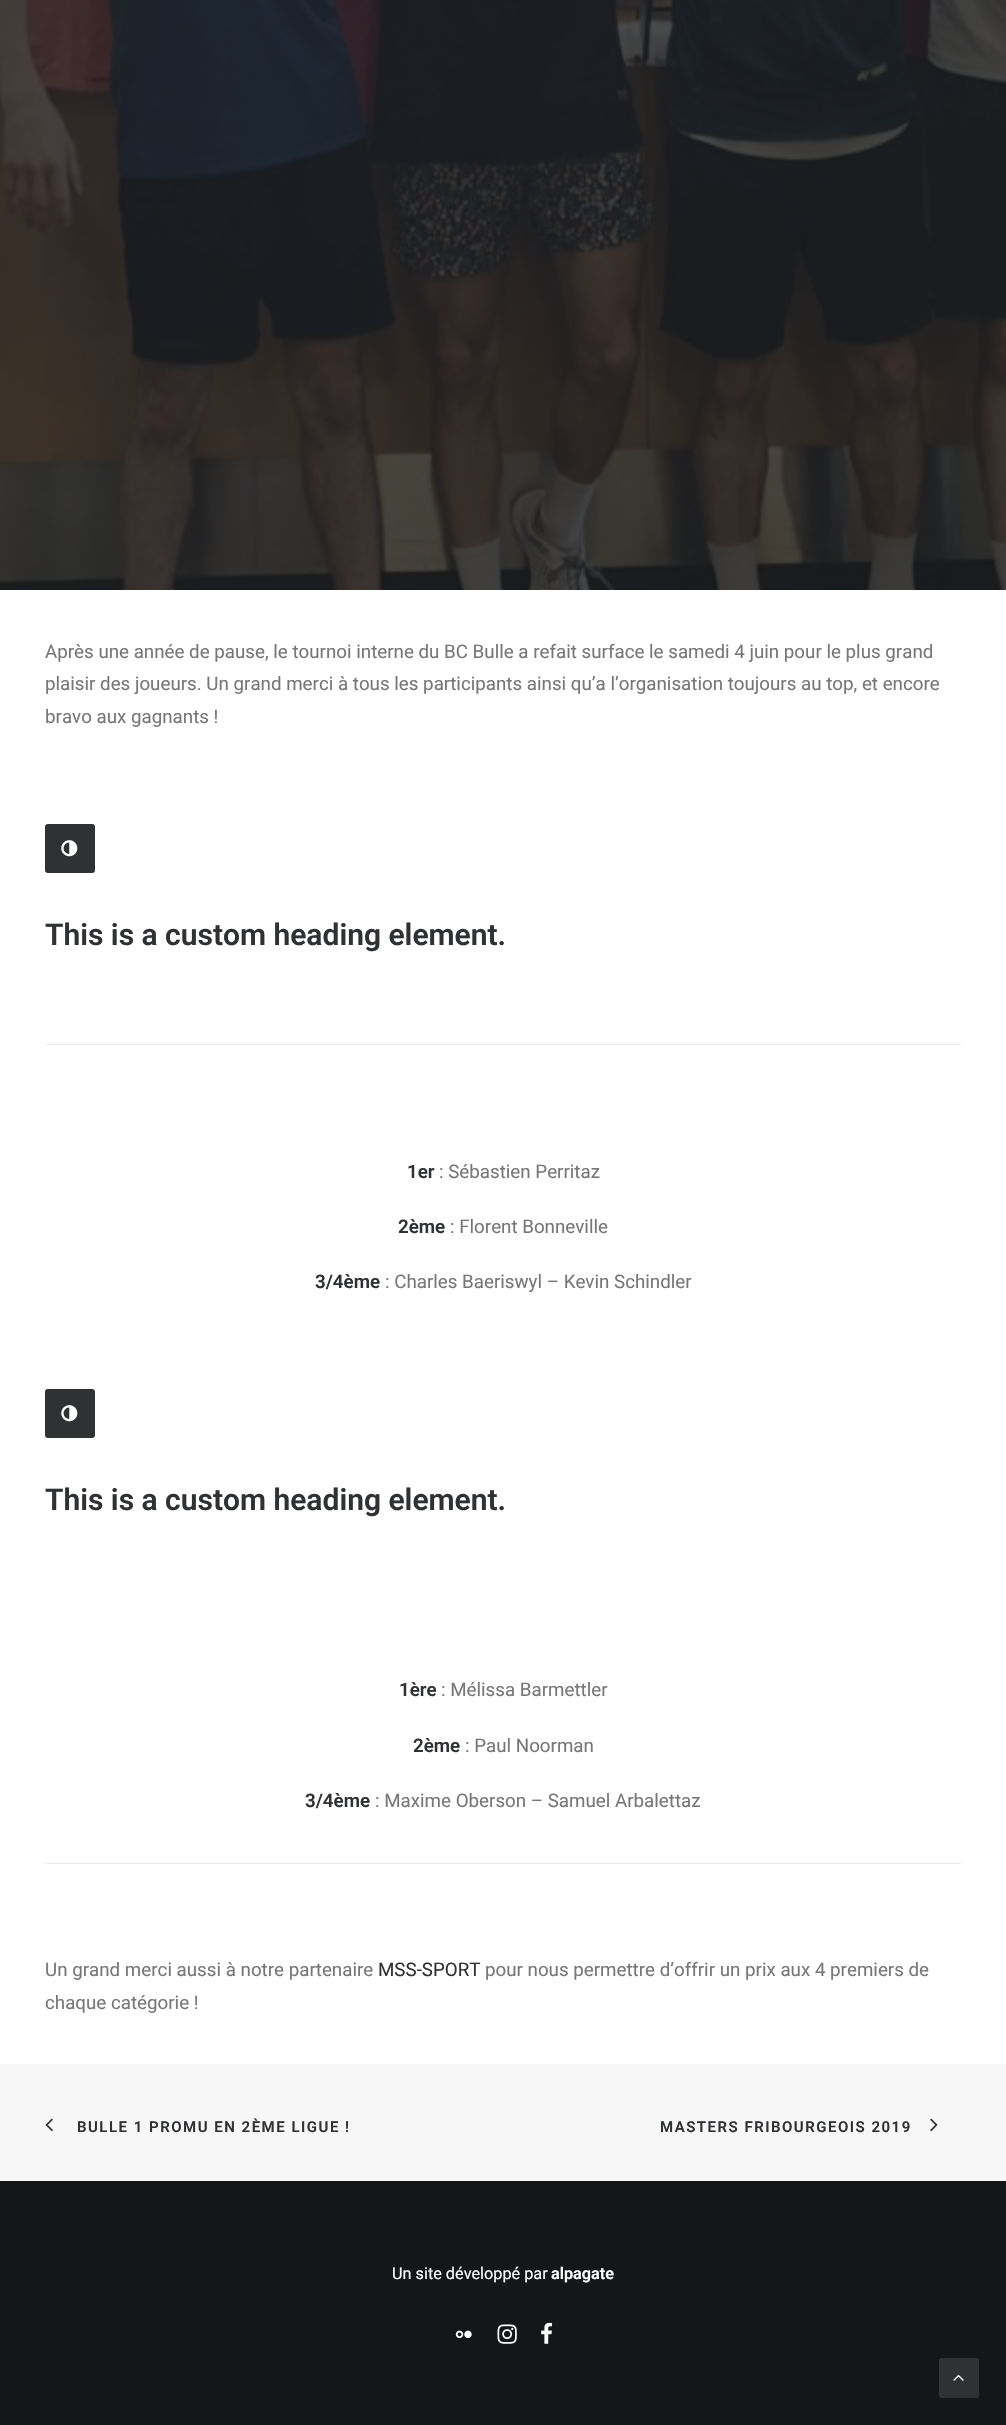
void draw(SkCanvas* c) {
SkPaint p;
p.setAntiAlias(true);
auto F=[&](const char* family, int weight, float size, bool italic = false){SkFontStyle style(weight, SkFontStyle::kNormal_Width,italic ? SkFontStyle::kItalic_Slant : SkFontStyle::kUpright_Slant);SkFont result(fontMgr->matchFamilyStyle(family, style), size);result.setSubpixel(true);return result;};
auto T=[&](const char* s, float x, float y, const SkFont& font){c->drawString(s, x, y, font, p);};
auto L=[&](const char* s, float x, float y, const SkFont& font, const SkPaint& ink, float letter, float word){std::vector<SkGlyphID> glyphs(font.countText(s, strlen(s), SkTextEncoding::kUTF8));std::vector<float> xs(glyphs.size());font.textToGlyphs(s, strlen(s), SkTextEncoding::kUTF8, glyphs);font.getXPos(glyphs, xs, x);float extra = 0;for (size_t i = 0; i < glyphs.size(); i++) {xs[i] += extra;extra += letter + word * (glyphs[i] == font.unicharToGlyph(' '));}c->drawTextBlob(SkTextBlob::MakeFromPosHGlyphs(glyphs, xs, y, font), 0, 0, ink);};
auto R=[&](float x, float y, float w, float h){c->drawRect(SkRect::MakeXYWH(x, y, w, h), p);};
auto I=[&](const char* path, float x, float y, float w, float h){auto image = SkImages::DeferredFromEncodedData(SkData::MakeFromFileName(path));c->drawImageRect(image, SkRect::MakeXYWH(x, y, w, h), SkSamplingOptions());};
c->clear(0xffffffff);
I("1.png",0,0,1006,590);
auto f1 = F("Roboto",400,18.75);
p.setColor(0xff777777);
T("Après une année de pause, le tournoi interne du BC Bulle a refait surface le samedi 4 juin pour le plus grand",45,658,f1);
T("plaisir des joueurs. Un grand merci à tous les participants ainsi qu’a l’organisation toujours au top, et encore",45,690,f1);
T("bravo aux gagnants !",45,723,f1);
p.setColor(0xff303133);
c->drawRoundRect(SkRect::MakeXYWH(45.5,824.5,49,48),2,2,p);
p.setStroke(true);
p.setStrokeWidth(1);
c->drawRoundRect(SkRect::MakeXYWH(45.5,824.5,49,48),2,2,p);
I("2.png",61,840,17,17);
auto f2 = F("Roboto",600,30);
p.setStroke(false);
T("This is a custom heading element.",45,945,f2);
p.setColor(0xffeaeaea);
R(45,1044,916,1);
auto f3 = F("Roboto",600,18.75);
p.setColor(0xff303133);
T("1er",407,1178,f3);
p.setColor(0xff777777);
T(": Sébastien Perritaz",439,1178,f1);
p.setColor(0xff303133);
T("2ème",398,1233,f3);
p.setColor(0xff777777);
T(": Florent Bonneville",450,1233,f1);
p.setColor(0xff303133);
T("3/4ème",315,1288,f3);
p.setColor(0xff777777);
T(": Charles Baeriswyl – Kevin Schindler",385,1288,f1);
p.setColor(0xff303133);
c->drawRoundRect(SkRect::MakeXYWH(45.5,1389.5,49,48),2,2,p);
p.setStroke(true);
c->drawRoundRect(SkRect::MakeXYWH(45.5,1389.5,49,48),2,2,p);
I("2.png",61,1405,17,17);
p.setStroke(false);
T("This is a custom heading element.",45,1510,f2);
T("1ère",399,1696,f3);
p.setColor(0xff777777);
T(": Mélissa Barmettler",441,1696,f1);
p.setColor(0xff303133);
T("2ème",413,1752,f3);
p.setColor(0xff777777);
T(": Paul Noorman",465,1752,f1);
p.setColor(0xff303133);
T("3/4ème",305,1807,f3);
p.setColor(0xff777777);
T(": Maxime Oberson – Samuel Arbalettaz",375,1807,f1);
p.setColor(0xffeaeaea);
R(45,1863,916,1);
p.setColor(0xff777777);
T("Un grand merci aussi à notre partenaire",45,1976,f1);
p.setColor(0xff303133);
T("MSS-SPORT",378,1976,f1);
p.setColor(0xff777777);
T("pour nous permettre d’offrir un prix aux 4 premiers de",485,1976,f1);
T("chaque catégorie !",45,2009,f1);
p.setColor(0xfff7f7f7);
R(0,2064,1006,117);
I("3.png",45,2118,8,14);
auto f4 = F("Roboto",600,15);
p.setColor(0xff303133);
L("BULLE 1 PROMU EN 2ÈME LIGUE !",77,2132,f4,p,1.5,0);
L("MASTERS FRIBOURGEOIS 2019",660,2132,f4,p,1.5,0);
I("4.png",930,2118,8,14);
p.setColor(0xff141618);
R(0,2181,1006,244);
auto f5 = F("Roboto",400,16.25);
p.setColor(0xffffffff);
T("Un site développé par",392,2279,f5);
auto f6 = F("Roboto",600,16.25);
T("alpagate",551,2279,f6);
I("5.png",455,2330,17,9);
I("6.png",497,2324,20,20);
I("7.png",541,2322,12,22);
p.setColor(0xff303133);
c->drawRoundRect(SkRect::MakeXYWH(939.5,2358.5,39,39),2,2,p);
p.setStroke(true);
c->drawRoundRect(SkRect::MakeXYWH(939.5,2358.5,39,39),2,2,p);
I("8.png",953,2374,11,7);
}
